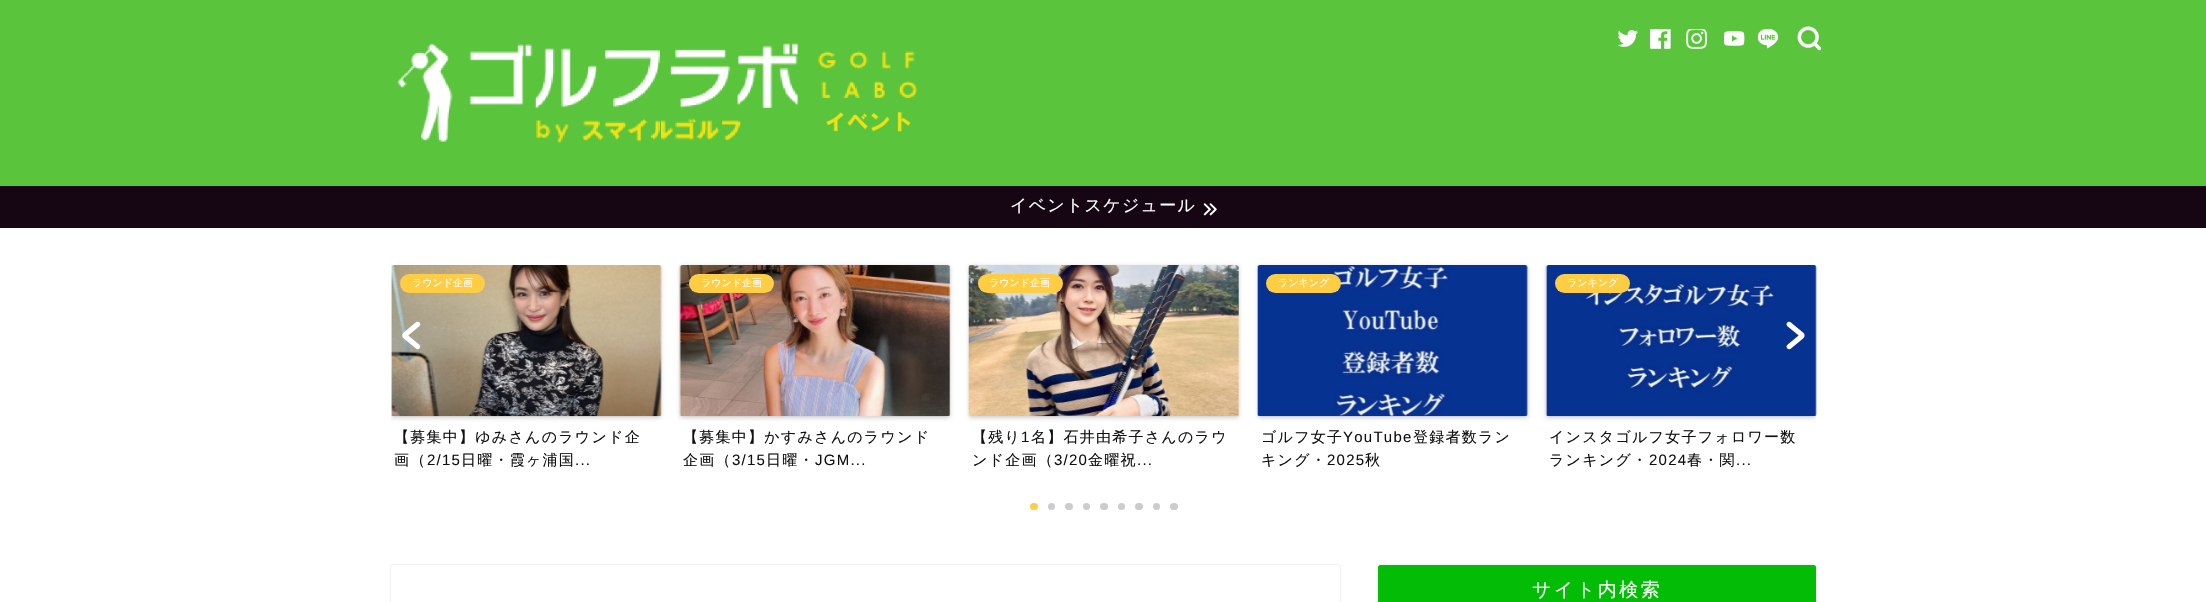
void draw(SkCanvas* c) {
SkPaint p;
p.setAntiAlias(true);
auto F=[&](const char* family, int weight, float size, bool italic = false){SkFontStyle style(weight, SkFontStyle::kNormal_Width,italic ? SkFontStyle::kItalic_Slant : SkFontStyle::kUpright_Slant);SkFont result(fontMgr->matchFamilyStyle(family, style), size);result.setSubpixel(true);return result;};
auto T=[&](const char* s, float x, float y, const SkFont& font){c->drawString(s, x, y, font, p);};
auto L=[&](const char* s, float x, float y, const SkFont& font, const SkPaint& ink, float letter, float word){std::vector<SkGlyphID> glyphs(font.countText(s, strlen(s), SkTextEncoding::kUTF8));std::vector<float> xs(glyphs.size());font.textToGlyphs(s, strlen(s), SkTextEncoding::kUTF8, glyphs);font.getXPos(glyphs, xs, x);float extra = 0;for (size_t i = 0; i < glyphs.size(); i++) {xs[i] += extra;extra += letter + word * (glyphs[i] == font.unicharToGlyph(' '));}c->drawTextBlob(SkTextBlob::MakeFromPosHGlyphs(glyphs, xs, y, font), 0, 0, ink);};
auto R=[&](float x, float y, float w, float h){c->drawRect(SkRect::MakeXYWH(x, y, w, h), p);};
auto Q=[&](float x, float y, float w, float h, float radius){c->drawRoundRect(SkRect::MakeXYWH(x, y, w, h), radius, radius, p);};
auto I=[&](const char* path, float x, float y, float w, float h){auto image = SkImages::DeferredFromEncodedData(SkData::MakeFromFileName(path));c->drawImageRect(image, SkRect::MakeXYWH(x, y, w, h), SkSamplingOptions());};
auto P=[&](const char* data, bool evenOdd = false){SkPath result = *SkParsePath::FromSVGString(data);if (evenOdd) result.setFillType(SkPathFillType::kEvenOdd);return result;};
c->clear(0xffffffff);
p.setColor(0xff5ac43c);
R(0,0,2206,186);
I("1.png",1618,30,20,17);
I("2.png",1650,29,21,20);
I("3.png",1686,29,21,20);
I("4.png",1724,31,21,15);
I("5.png",1758,29,21,20);
I("6.png",1797,26,25,25);
I("7.png",397,43,520,100);
p.setColor(0xff160614);
R(0,186,2206,42);
auto f1 = F("WenQuanYi Zen Hei",500,17);
p.setColor(0xffffffff);
L("イベントスケジュール",1010,211,f1,p,1.25,0);
I("8.png",1203,203,14,13);
c->save();
c->clipRect(SkRect::MakeXYWH(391,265,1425,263));
p.setColor(0x2e000000);
p.setMaskFilter(SkMaskFilter::MakeBlur(kNormal_SkBlurStyle, 2));
c->drawRoundRect(SkRect::MakeXYWH(391,266,270,152),2.5,2.5,p);
p.setMaskFilter(nullptr);
c->restore();
p.setColor(0xffffffff);
Q(391,265,270,151,2.5);
I("9.png",391,265,271,152);
p.setColor(0xffffcd44);
Q(400,274,85,19,9.5);
auto f2 = F("WenQuanYi Zen Hei",500,10);
p.setColor(0xffffffff);
T("ラウンド企画",412,286,f2);
auto f3 = F("WenQuanYi Zen Hei",500,15);
p.setColor(0xff111111);
L("【募集中】ゆみさんのラウンド企",394,442,f3,p,1.25,0);
L("画（",394,465,f3,p,1.25,0);
auto f4 = F("Liberation Sans",400,15);
L("2/15",427,465,f4,p,1.25,0);
L("日曜・霞ヶ浦国",461,465,f3,p,1.25,0);
L("...",575,465,f4,p,1.25,0);
p.setColor(0x2e000000);
p.setMaskFilter(SkMaskFilter::MakeBlur(kNormal_SkBlurStyle, 2));
c->drawRoundRect(SkRect::MakeXYWH(680,266,270,152),2.5,2.5,p);
p.setMaskFilter(nullptr);
p.setColor(0xffffffff);
Q(680,265,270,151,2.5);
I("10.png",679,265,272,152);
p.setColor(0xffffcd44);
Q(689,274,85,19,9.5);
p.setColor(0xffffffff);
T("ラウンド企画",701,286,f2);
p.setColor(0xff111111);
L("【募集中】かすみさんのラウンド",683,442,f3,p,1.25,0);
L("企画（",683,465,f3,p,1.25,0);
L("3/15",732,465,f4,p,1.25,0);
L("日曜・",766,465,f3,p,1.25,0);
L("JGM...",815,465,f4,p,1.25,0);
p.setColor(0x2e000000);
p.setMaskFilter(SkMaskFilter::MakeBlur(kNormal_SkBlurStyle, 2));
c->drawRoundRect(SkRect::MakeXYWH(969,266,270,152),2.5,2.5,p);
p.setMaskFilter(nullptr);
p.setColor(0xffffffff);
Q(969,265,270,151,2.5);
I("11.png",968,265,271,152);
p.setColor(0xffffcd44);
Q(978,274,85,19,9.5);
p.setColor(0xffffffff);
T("ラウンド企画",989,286,f2);
p.setColor(0xff111111);
L("【残り",972,442,f3,p,1.25,0);
L("1",1021,442,f4,p,1.25,0);
L("名】石井由希子さんのラウ",1031,442,f3,p,1.25,0);
L("ンド企画（",972,465,f3,p,1.25,0);
L("3/20",1054,465,f4,p,1.25,0);
L("金曜祝",1088,465,f3,p,1.25,0);
L("...",1137,465,f4,p,1.25,0);
p.setColor(0x2e000000);
p.setMaskFilter(SkMaskFilter::MakeBlur(kNormal_SkBlurStyle, 2));
c->drawRoundRect(SkRect::MakeXYWH(1258,266,270,152),2.5,2.5,p);
p.setMaskFilter(nullptr);
p.setColor(0xffffffff);
Q(1258,265,270,151,2.5);
I("12.png",1257,265,271,152);
p.setColor(0xffffcd44);
Q(1266,274,75,19,9.5);
p.setColor(0xffffffff);
T("ランキング",1278,286,f2);
p.setColor(0xff111111);
L("ゴルフ女子",1261,442,f3,p,1.25,0);
L("YouTube",1343,442,f4,p,1.25,0);
L("登録者数ラン",1413,442,f3,p,1.25,0);
L("キング・",1261,465,f3,p,1.25,0);
L("2025",1327,465,f4,p,1.25,0);
L("秋",1365,465,f3,p,1.25,0);
c->save();
c->clipRect(SkRect::MakeXYWH(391,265,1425,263));
p.setColor(0x2e000000);
p.setMaskFilter(SkMaskFilter::MakeBlur(kNormal_SkBlurStyle, 2));
c->drawRoundRect(SkRect::MakeXYWH(1546,266,270,152),2.5,2.5,p);
p.setMaskFilter(nullptr);
c->restore();
p.setColor(0xffffffff);
Q(1546,265,270,151,2.5);
I("13.png",1545,265,272,152);
p.setColor(0xffffcd44);
Q(1555,274,75,19,9.5);
p.setColor(0xffffffff);
T("ランキング",1567,286,f2);
p.setColor(0xff111111);
L("インスタゴルフ女子フォロワー数",1549,442,f3,p,1.25,0);
L("ランキング・",1549,465,f3,p,1.25,0);
L("2024",1649,465,f4,p,1.25,0);
L("春・関",1687,465,f3,p,1.25,0);
L("...",1736,465,f4,p,1.25,0);
I("14.png",402,321,19,29);
I("15.png",1786,321,19,29);
p.setColor(0xffffcd44);
Q(1030,503,8,7,3.5);
p.setColor(0xffcccccc);
c->drawCircle(1051.5,506.5,3.5,p);
Q(1065,503,8,7,3.5);
c->drawCircle(1086.5,506.5,3.5,p);
Q(1100,503,8,7,3.5);
c->drawCircle(1121.5,506.5,3.5,p);
Q(1135,503,8,7,3.5);
c->drawCircle(1156.5,506.5,3.5,p);
Q(1170,503,8,7,3.5);
p.setColor(0x2e000000);
p.setMaskFilter(SkMaskFilter::MakeBlur(kNormal_SkBlurStyle, 1));
c->drawRoundRect(SkRect::MakeXYWH(391,565,949,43),2.5,2.5,p);
p.setMaskFilter(nullptr);
p.setColor(0xffffffff);
Q(391,565,949,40,2.5);
p.setColor(0x2e000000);
p.setMaskFilter(SkMaskFilter::MakeBlur(kNormal_SkBlurStyle, 1));
c->drawRoundRect(SkRect::MakeXYWH(1378,565,438,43),2.5,2.5,p);
p.setMaskFilter(nullptr);
p.setColor(0xff03bc06);
c->drawPath(P("M1380.5 565h433c1.5 0 2.5 1 2.5 2.5v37.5h-438v-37.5c0-1.5 1-2.5 2.5-2.5z"),p);
auto f5 = F("WenQuanYi Zen Hei",500,19);
p.setColor(0xffffffff);
L("サイト内検索",1532,596,f5,p,2.5,0);
}
